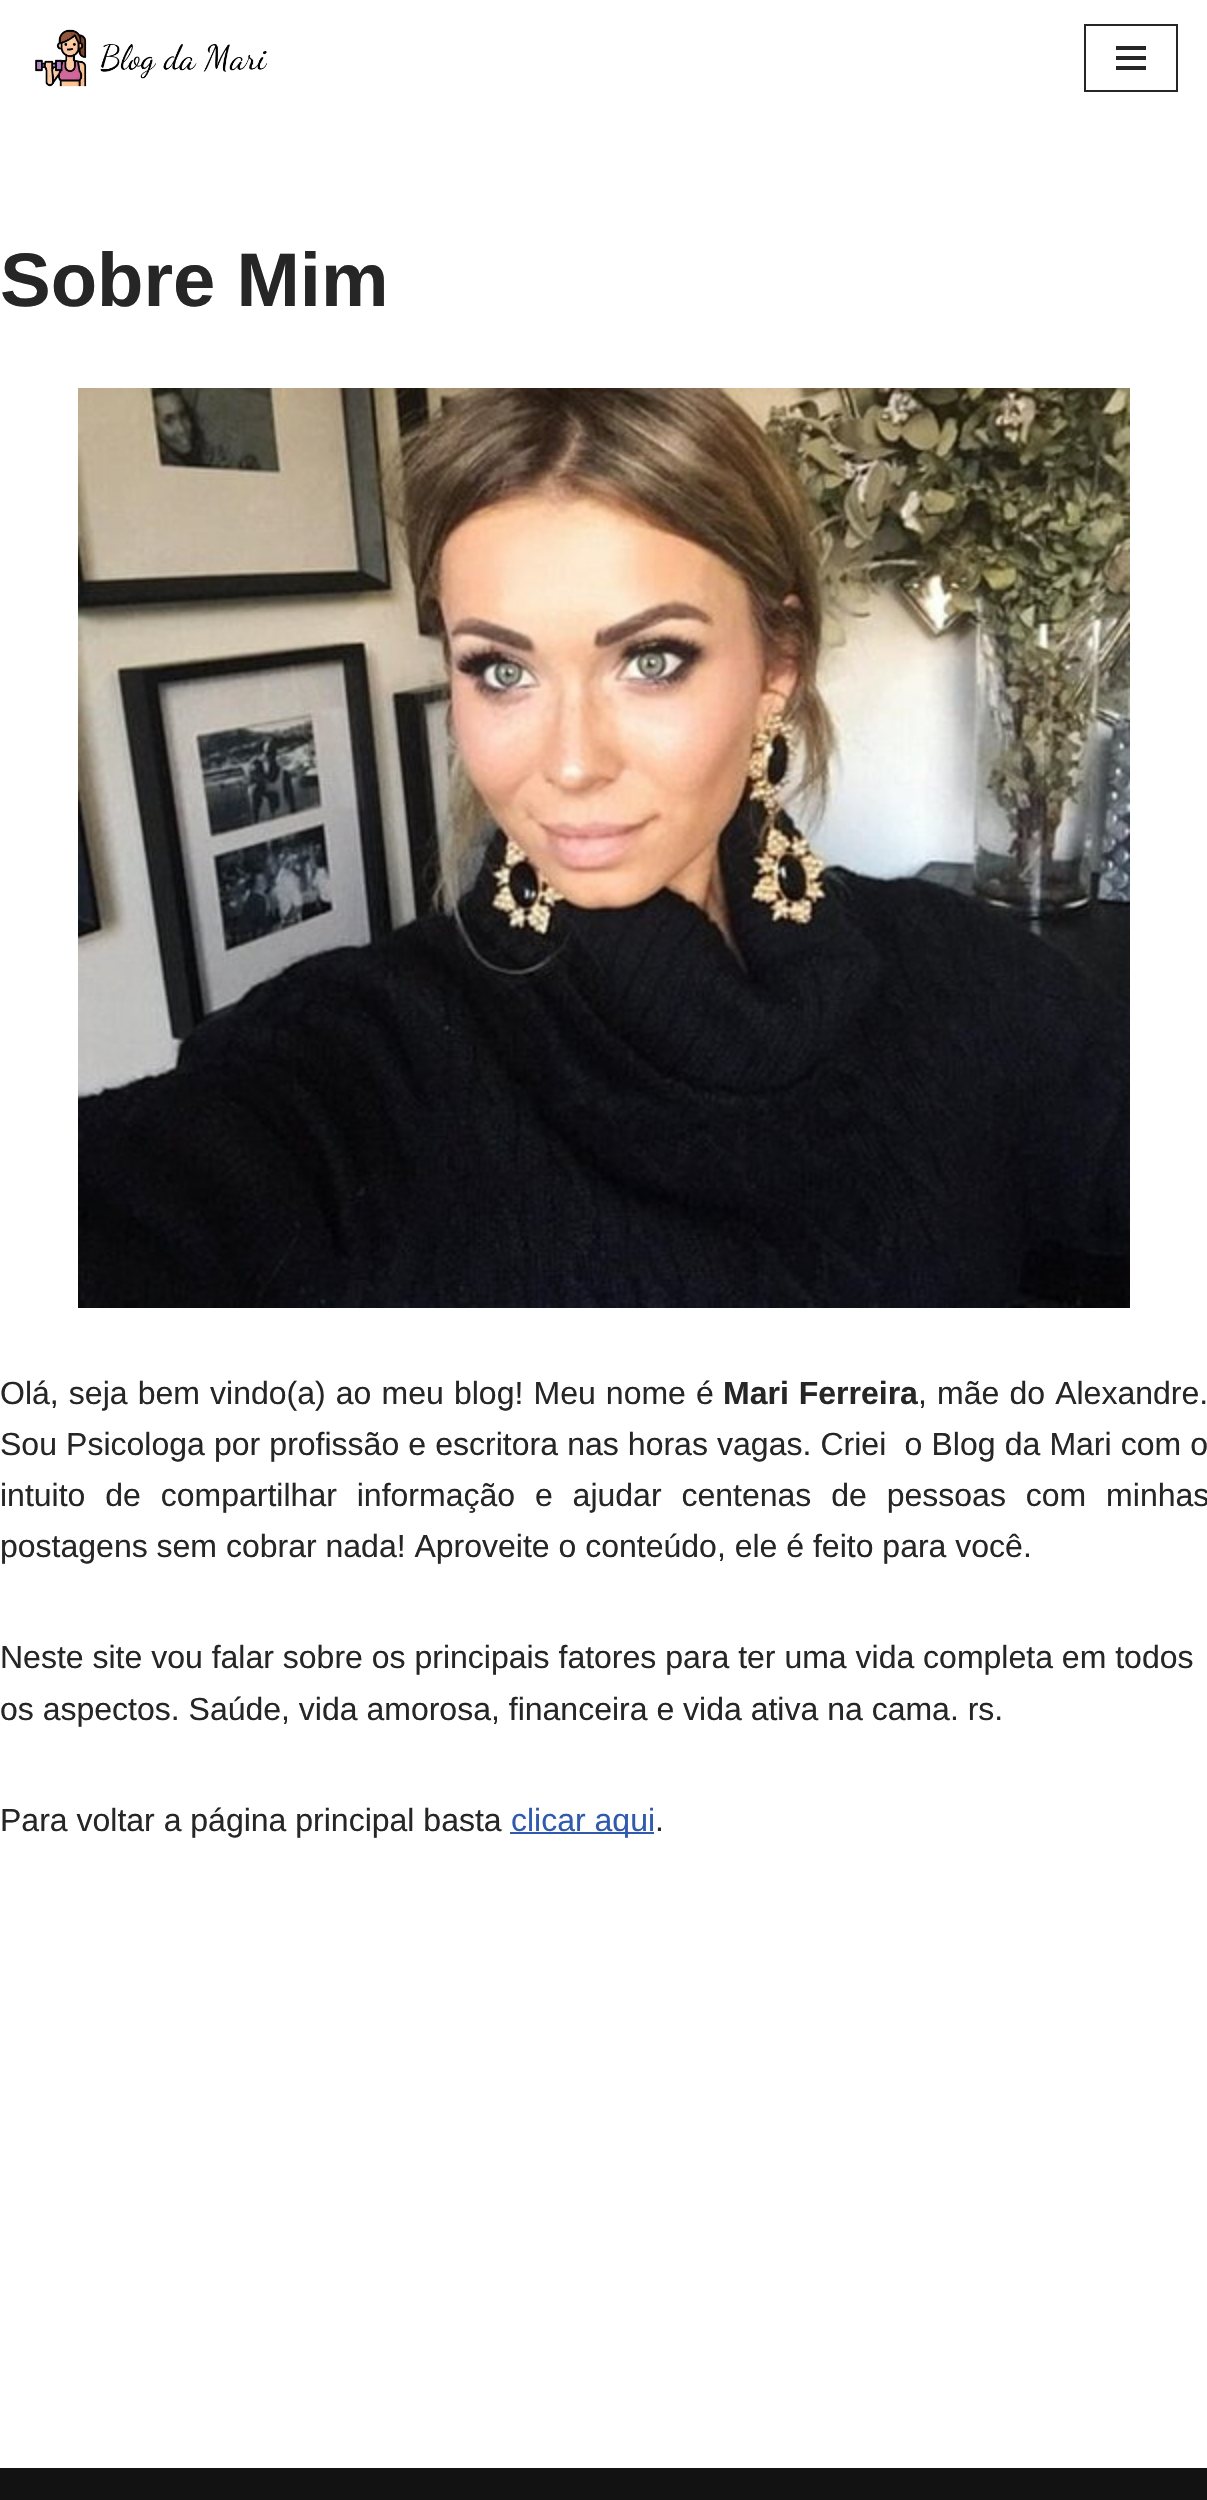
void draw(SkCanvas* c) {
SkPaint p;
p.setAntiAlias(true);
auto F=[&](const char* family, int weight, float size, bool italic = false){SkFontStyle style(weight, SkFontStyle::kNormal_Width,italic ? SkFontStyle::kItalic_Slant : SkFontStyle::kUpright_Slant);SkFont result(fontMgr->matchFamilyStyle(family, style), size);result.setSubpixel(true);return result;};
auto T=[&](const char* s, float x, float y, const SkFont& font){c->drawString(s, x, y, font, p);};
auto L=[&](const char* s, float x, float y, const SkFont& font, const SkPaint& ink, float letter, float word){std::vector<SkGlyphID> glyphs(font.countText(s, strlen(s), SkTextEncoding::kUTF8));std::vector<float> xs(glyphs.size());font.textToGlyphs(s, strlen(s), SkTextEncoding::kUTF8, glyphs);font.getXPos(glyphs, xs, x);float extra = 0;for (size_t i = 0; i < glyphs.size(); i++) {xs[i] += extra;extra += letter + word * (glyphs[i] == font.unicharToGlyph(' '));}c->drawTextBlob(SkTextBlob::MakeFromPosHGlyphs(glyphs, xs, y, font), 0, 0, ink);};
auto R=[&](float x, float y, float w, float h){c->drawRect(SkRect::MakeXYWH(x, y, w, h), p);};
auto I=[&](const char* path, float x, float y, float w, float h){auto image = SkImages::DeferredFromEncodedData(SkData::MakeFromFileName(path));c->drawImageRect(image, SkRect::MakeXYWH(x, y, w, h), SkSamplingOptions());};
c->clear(0xffffffff);
I("1.png",35,29,233,58);
p.setStroke(true);
p.setStrokeWidth(2);
p.setColor(0xff272626);
c->drawRect(SkRect::MakeXYWH(1085,25,92,66),p);
p.setStroke(false);
R(1116,46,30,4);
R(1116,56,30,4);
R(1116,66,30,4);
auto f1 = F("Liberation Sans",700,76);
T("Sobre Mim",0,306,f1);
I("2.png",78,388,1052,920);
auto f2 = F("Liberation Sans",400,32);
L("Olá, seja bem vindo(a) ao meu blog! Meu nome é",0,1404,f2,p,0,1.25);
auto f3 = F("Liberation Sans",700,32);
L("Mari Ferreira",723,1404,f3,p,0,1);
L(", mãe do Alexandre.",918,1404,f2,p,0,1.25);
L("Sou Psicologa por profissão e escritora nas horas vagas. Criei  o Blog da Mari com o",0,1455,f2,p,0,.25);
L("intuito de compartilhar informação e ajudar centenas de pessoas com minhas",0,1506,f2,p,0,11);
T("postagens sem cobrar nada! Aproveite o conteúdo, ele é feito para você.",0,1557,f2);
T("Neste site vou falar sobre os principais fatores para ter uma vida completa em todos",0,1668,f2);
T("os aspectos. Saúde, vida amorosa, financeira e vida ativa na cama. rs.",0,1720,f2);
T("Para voltar a página principal basta",0,1831,f2);
p.setColor(0xff2f5aae);
R(510,1832,144,2);
T("clicar aqui",511,1831,f2);
p.setColor(0xff272626);
T(".",655,1831,f2);
p.setColor(0xff121212);
R(0,2468,1207,32);
}
